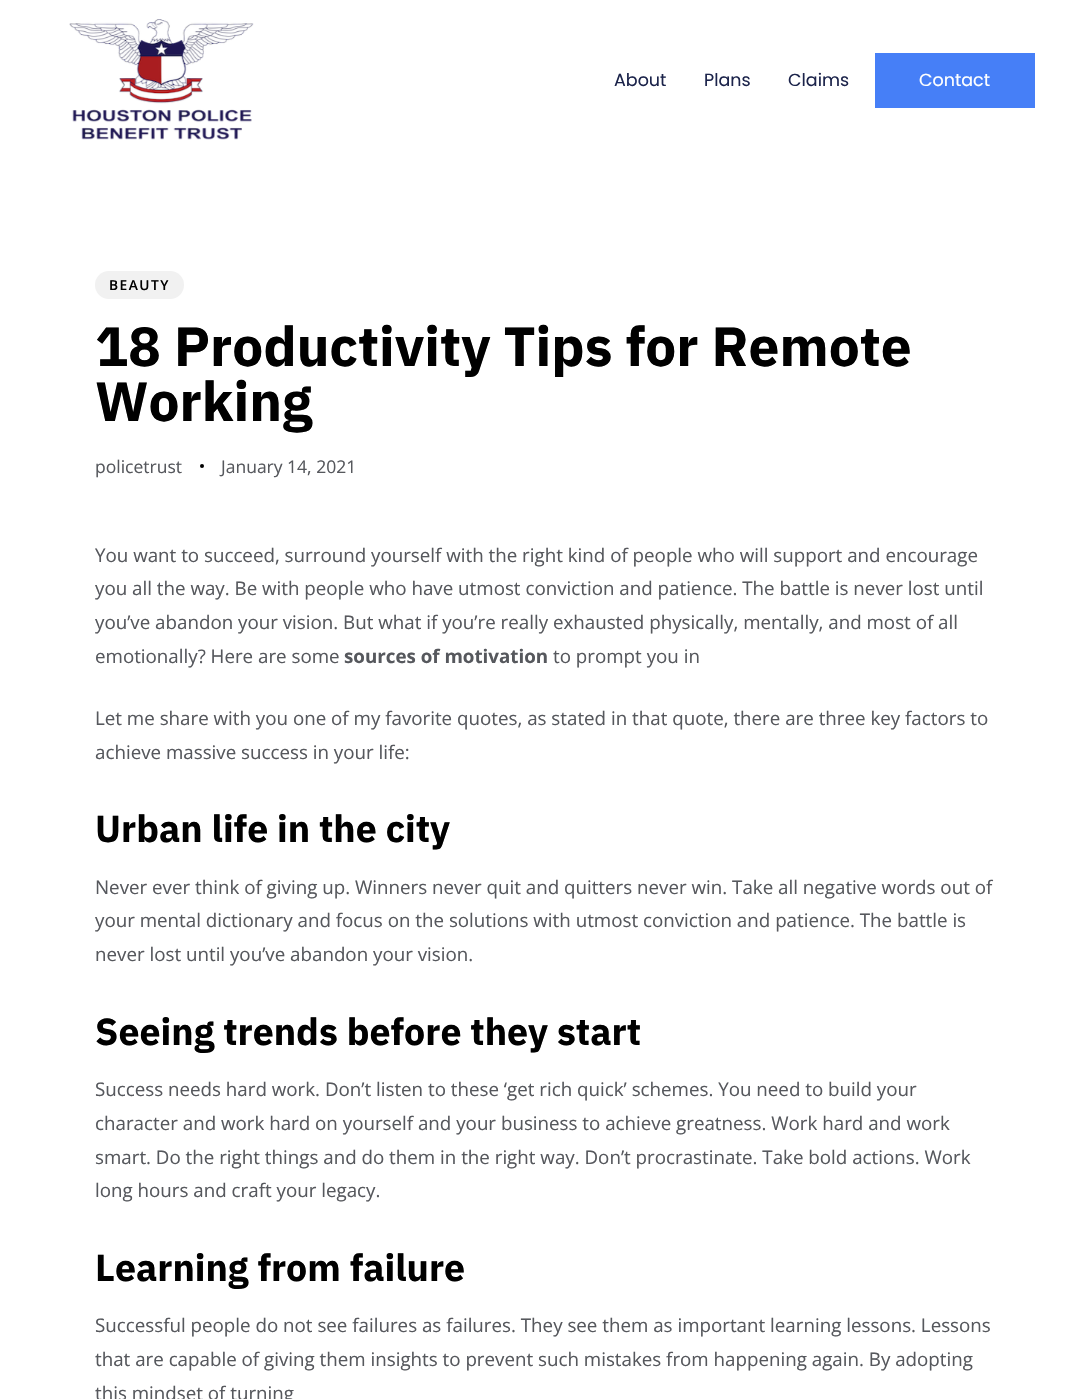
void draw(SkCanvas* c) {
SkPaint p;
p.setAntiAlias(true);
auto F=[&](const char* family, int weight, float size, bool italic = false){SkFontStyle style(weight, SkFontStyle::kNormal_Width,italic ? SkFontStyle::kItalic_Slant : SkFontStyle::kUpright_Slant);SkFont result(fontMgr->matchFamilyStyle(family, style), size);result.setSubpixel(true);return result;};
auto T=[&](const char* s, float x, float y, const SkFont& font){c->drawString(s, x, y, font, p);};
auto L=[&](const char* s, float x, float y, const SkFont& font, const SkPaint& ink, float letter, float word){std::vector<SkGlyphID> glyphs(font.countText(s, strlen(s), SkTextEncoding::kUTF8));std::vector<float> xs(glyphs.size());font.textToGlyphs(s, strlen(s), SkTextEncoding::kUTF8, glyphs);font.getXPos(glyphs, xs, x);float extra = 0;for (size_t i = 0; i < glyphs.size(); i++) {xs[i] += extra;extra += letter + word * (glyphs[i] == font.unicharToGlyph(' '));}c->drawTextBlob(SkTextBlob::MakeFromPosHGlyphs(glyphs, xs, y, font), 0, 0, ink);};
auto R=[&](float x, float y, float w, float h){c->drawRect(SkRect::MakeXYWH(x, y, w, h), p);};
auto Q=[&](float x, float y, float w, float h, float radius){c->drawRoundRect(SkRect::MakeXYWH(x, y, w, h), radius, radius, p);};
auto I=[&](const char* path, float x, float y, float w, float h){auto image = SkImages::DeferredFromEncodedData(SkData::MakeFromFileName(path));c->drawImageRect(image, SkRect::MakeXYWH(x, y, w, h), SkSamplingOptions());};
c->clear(0xffffffff);
I("1.png",69,19,185,121);
auto f1 = F("Poppins",400,17.5);
p.setColor(0xff1c244b);
T("About",614,86,f1);
T("Plans",704,86,f1);
T("Claims",788,86,f1);
p.setColor(0xff467ff7);
R(875,53,160,55);
p.setColor(0xffffffff);
T("Contact",919,86,f1);
p.setColor(0xfff1f1f1);
Q(95,271,89,28,14);
auto f2 = F("Open Sans",600,13.75);
p.setColor(0xff000000);
L("BEAUTY",109,290,f2,p,1.5,0);
auto f3 = F("IBM Plex Sans",700,55);
T("18 Productivity Tips for Remote",95,366,f3);
T("Working",95,421,f3);
auto f4 = F("Open Sans",400,17.5);
p.setColor(0xff56585d);
T("policetrust",95,473,f4);
p.setColor(0xff000000);
c->drawCircle(202,466,2,p);
p.setColor(0xff56585d);
T("January 14, 2021",221,473,f4);
auto f5 = F("Open Sans",400,18.75);
T("You want to succeed, surround yourself with the right kind of people who will support and encourage",95,562,f5);
T("you all the way. Be with people who have utmost conviction and patience. The battle is never lost until",95,595,f5);
T("you’ve abandon your vision. But what if you’re really exhausted physically, mentally, and most of all",95,629,f5);
T("emotionally? Here are some",95,663,f5);
auto f6 = F("Open Sans",700,18.75);
T("sources of motivation",344,663,f6);
T("to prompt you in",553,663,f5);
T("Let me share with you one of my favorite quotes, as stated in that quote, there are three key factors to",95,725,f5);
T("achieve massive success in your life:",95,759,f5);
auto f7 = F("IBM Plex Sans",700,37.5);
p.setColor(0xff000000);
T("Urban life in the city",95,842,f7);
p.setColor(0xff56585d);
T("Never ever think of giving up. Winners never quit and quitters never win. Take all negative words out of",95,894,f5);
T("your mental dictionary and focus on the solutions with utmost conviction and patience. The battle is",95,927,f5);
T("never lost until you’ve abandon your vision.",95,961,f5);
p.setColor(0xff000000);
T("Seeing trends before they start",95,1045,f7);
p.setColor(0xff56585d);
T("Success needs hard work. Don’t listen to these ‘get rich quick’ schemes. You need to build your",95,1096,f5);
T("character and work hard on yourself and your business to achieve greatness. Work hard and work",95,1130,f5);
T("smart. Do the right things and do them in the right way. Don’t procrastinate. Take bold actions. Work",95,1164,f5);
T("long hours and craft your legacy.",95,1197,f5);
p.setColor(0xff000000);
T("Learning from failure",95,1281,f7);
p.setColor(0xff56585d);
T("Successful people do not see failures as failures. They see them as important learning lessons. Lessons",95,1332,f5);
T("that are capable of giving them insights to prevent such mistakes from happening again. By adopting",95,1366,f5);
T("this mindset of turning",95,1400,f5);
}
